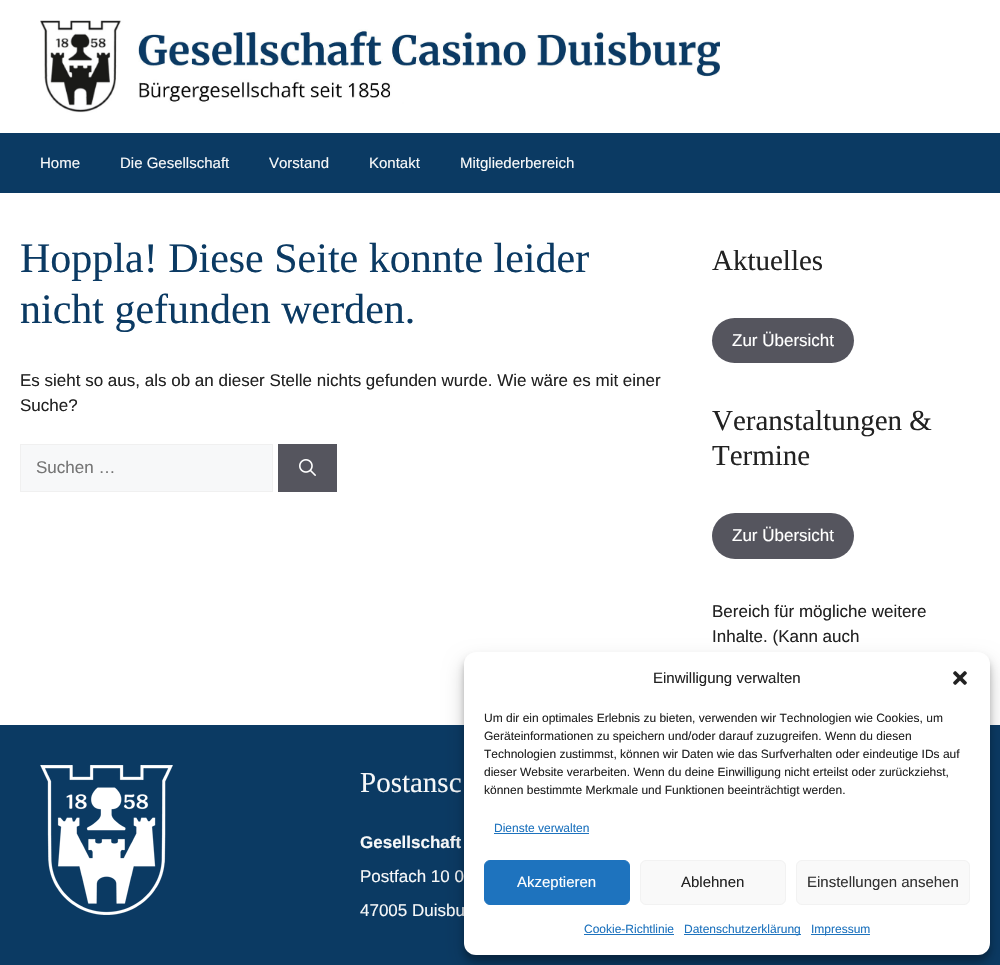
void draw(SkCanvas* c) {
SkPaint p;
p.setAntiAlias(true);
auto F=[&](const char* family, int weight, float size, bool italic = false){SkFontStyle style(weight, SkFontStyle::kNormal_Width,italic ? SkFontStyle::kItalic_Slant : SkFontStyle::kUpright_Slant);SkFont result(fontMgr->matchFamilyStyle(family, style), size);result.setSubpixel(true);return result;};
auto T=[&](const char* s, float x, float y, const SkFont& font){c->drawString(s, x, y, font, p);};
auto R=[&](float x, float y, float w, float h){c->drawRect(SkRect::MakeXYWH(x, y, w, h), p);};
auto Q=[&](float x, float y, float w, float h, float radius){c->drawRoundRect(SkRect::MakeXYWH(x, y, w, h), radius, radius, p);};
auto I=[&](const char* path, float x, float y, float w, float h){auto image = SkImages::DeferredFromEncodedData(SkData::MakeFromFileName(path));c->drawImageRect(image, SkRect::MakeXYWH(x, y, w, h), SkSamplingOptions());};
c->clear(0xffffffff);
I("1.png",40,20,680,93);
p.setColor(0xff0b3a63);
R(0,133,1000,60);
auto f1 = F("Liberation Sans",400,15);
p.setColor(0xfff7f8f9);
T("Home",40,168,f1);
T("Die Gesellschaft",120,168,f1);
T("Vorstand",269,168,f1);
T("Kontakt",369,168,f1);
T("Mitgliederbereich",460,168,f1);
auto f2 = F("Liberation Serif",400,42);
p.setColor(0xff0b3a63);
T("Hoppla! Diese Seite konnte leider",20,272,f2);
T("nicht gefunden werden.",20,323,f2);
auto f3 = F("Liberation Sans",400,17);
p.setColor(0xff222222);
T("Es sieht so aus, als ob an dieser Stelle nichts gefunden wurde. Wie wäre es mit einer",20,386,f3);
T("Suche?",20,411,f3);
p.setColor(0xfff7f8f9);
c->drawRect(SkRect::MakeXYWH(20.5,444.5,252,47),p);
p.setStroke(true);
p.setStrokeWidth(1);
p.setColor(0xfff0f0f0);
c->drawRect(SkRect::MakeXYWH(20.5,444.5,252,47),p);
p.setStroke(false);
p.setColor(0xff757575);
T("Suchen …",36,473,f3);
p.setColor(0xff55555e);
R(278,444,59,48);
I("2.png",299,459,17,17);
auto f4 = F("Liberation Serif",400,29);
p.setColor(0xff222222);
T("Aktuelles",712,270,f4);
p.setColor(0xff55555e);
Q(712,318,142,45,22.5);
p.setColor(0xffffffff);
T("Zur Übersicht",732,346,f3);
p.setColor(0xff222222);
T("Veranstaltungen &",712,430,f4);
T("Termine",712,465,f4);
p.setColor(0xff55555e);
Q(712,513,142,46,23);
p.setColor(0xffffffff);
T("Zur Übersicht",732,541,f3);
p.setColor(0xff222222);
T("Bereich für mögliche weitere",712,617,f3);
T("Inhalte. (Kann auch",712,642,f3);
p.setColor(0xff0b3a63);
R(0,725,1000,240);
I("3.png",40,765,133,150);
p.setColor(0xfff7f8f9);
T("Postansc",360,792,f4);
auto f5 = F("Liberation Sans",700,17);
T("Gesellschaft",360,848,f5);
T("Postfach 10 0",360,882,f3);
T("47005 Duisbu",360,916,f3);
p.setColor(0x3b000000);
p.setMaskFilter(SkMaskFilter::MakeBlur(kNormal_SkBlurStyle, 3));
c->drawRoundRect(SkRect::MakeXYWH(464,658,526,303),12,12,p);
p.setMaskFilter(nullptr);
p.setColor(0x30000000);
p.setMaskFilter(SkMaskFilter::MakeBlur(kNormal_SkBlurStyle, 10));
c->drawRoundRect(SkRect::MakeXYWH(464,662,526,303),12,12,p);
p.setMaskFilter(nullptr);
p.setColor(0xffffffff);
Q(464,652,526,303,12);
p.setColor(0xff222222);
T("Einwilligung verwalten",653,683,f1);
I("4.png",953,671,14,14);
auto f6 = F("Liberation Sans",400,12);
T("Um dir ein optimales Erlebnis zu bieten, verwenden wir Technologien wie Cookies, um",484,722,f6);
T("Geräteinformationen zu speichern und/oder darauf zuzugreifen. Wenn du diesen",484,740,f6);
T("Technologien zustimmst, können wir Daten wie das Surfverhalten oder eindeutige IDs auf",484,758,f6);
T("dieser Website verarbeiten. Wenn du deine Einwilligung nicht erteilst oder zurückziehst,",484,776,f6);
T("können bestimmte Merkmale und Funktionen beeinträchtigt werden.",484,794,f6);
p.setColor(0xff1e73be);
T("Dienste verwalten",494,832,f6);
R(494,833,95,1);
c->drawRoundRect(SkRect::MakeXYWH(484.5,860.5,145,44),5.5,5.5,p);
p.setStroke(true);
c->drawRoundRect(SkRect::MakeXYWH(484.5,860.5,145,44),5.5,5.5,p);
p.setStroke(false);
p.setColor(0xffffffff);
T("Akzeptieren",517,887,f1);
p.setColor(0xfff9f9f9);
c->drawRoundRect(SkRect::MakeXYWH(640.5,860.5,145,44),5.5,5.5,p);
p.setStroke(true);
p.setColor(0xfff2f2f2);
c->drawRoundRect(SkRect::MakeXYWH(640.5,860.5,145,44),5.5,5.5,p);
p.setStroke(false);
p.setColor(0xff222222);
T("Ablehnen",681,887,f1);
p.setColor(0xfff9f9f9);
c->drawRoundRect(SkRect::MakeXYWH(796.5,860.5,173,44),5.5,5.5,p);
p.setStroke(true);
p.setColor(0xfff2f2f2);
c->drawRoundRect(SkRect::MakeXYWH(796.5,860.5,173,44),5.5,5.5,p);
p.setStroke(false);
p.setColor(0xff333333);
T("Einstellungen ansehen",807,887,f1);
p.setColor(0xff1e73be);
T("Cookie-Richtlinie",584,933,f6);
R(584,934,90,1);
R(684,934,117,1);
T("Datenschutzerklärung",684,933,f6);
R(811,934,59,1);
T("Impressum",811,933,f6);
}
